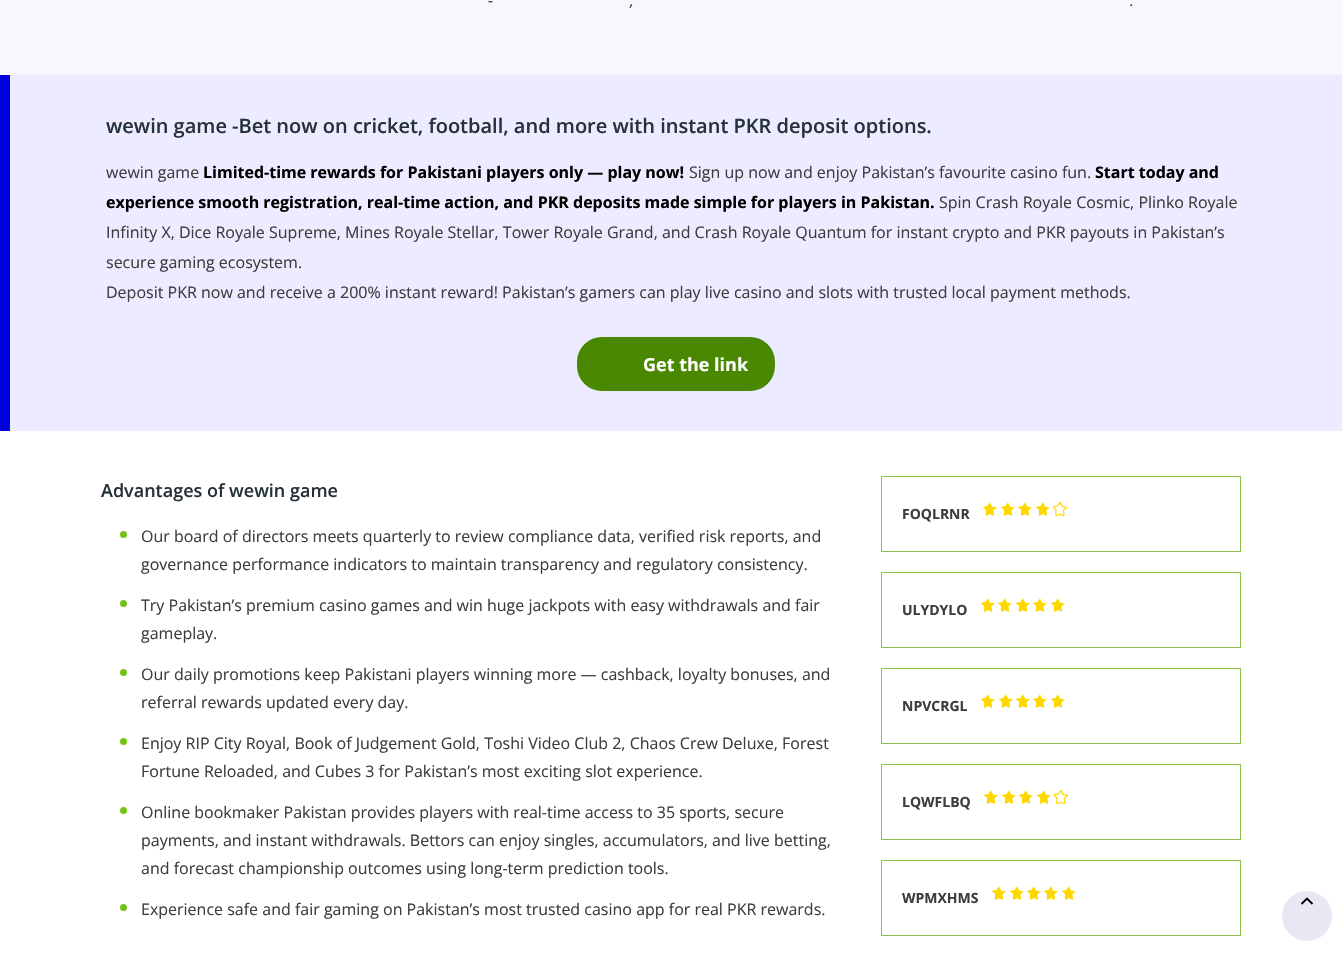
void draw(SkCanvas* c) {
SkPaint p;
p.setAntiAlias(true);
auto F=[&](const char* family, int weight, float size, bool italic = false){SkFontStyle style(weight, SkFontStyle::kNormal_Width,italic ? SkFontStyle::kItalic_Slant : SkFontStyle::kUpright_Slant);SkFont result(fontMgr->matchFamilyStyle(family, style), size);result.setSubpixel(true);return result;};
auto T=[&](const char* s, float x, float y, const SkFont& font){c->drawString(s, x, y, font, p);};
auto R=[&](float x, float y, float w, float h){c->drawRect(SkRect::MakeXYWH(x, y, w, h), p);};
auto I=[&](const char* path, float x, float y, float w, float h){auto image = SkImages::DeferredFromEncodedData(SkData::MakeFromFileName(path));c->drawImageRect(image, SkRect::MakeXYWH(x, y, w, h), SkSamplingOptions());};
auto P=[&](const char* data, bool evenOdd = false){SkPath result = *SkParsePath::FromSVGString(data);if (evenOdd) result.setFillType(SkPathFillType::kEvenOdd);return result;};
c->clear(0xffffffff);
p.setColor(0xfff7f7fe);
R(0,0,1342,75);
auto f1 = F("Open Sans",400,16,true);
p.setColor(0xff3d3d3d);
T("-",488,6,f1);
T(",",630,6,f1);
T(".",1130,6,f1);
p.setColor(0xffecebff);
R(10,75,1332,356);
p.setColor(0xff0101de);
R(0,75,10,356);
auto f2 = F("Open Sans",600,20);
p.setColor(0xff253237);
T("wewin game -Bet now on cricket, football, and more with instant PKR deposit options.",106,133,f2);
auto f3 = F("Open Sans",400,16);
p.setColor(0xff3d3d3d);
T("wewin game",106,178,f3);
auto f4 = F("Open Sans",700,16);
p.setColor(0xff000000);
T("Limited-time rewards for Pakistani players only — play now!",203,178,f4);
p.setColor(0xff3d3d3d);
T("Sign up now and enjoy Pakistan’s favourite casino fun.",689,178,f3);
p.setColor(0xff000000);
T("Start today and",1095,178,f4);
T("experience smooth registration, real-time action, and PKR deposits made simple for players in Pakistan.",106,208,f4);
p.setColor(0xff3d3d3d);
T("Spin Crash Royale Cosmic, Plinko Royale",939,208,f3);
T("Infinity X, Dice Royale Supreme, Mines Royale Stellar, Tower Royale Grand, and Crash Royale Quantum for instant crypto and PKR payouts in Pakistan’s",106,238,f3);
T("secure gaming ecosystem.",106,268,f3);
T("Deposit PKR now and receive a 200% instant reward! Pakistan’s gamers can play live casino and slots with trusted local payment methods.",106,298,f3);
p.setColor(0xff498800);
c->drawRoundRect(SkRect::MakeXYWH(578,338,196,52),24,24,p);
p.setStroke(true);
p.setStrokeWidth(2);
c->drawRoundRect(SkRect::MakeXYWH(578,338,196,52),24,24,p);
auto f5 = F("Open Sans",700,18);
p.setStroke(false);
p.setColor(0xffffffff);
T("Get the link",643,371,f5);
auto f6 = F("Open Sans",600,18);
p.setColor(0xff253237);
T("Advantages of wewin game",101,497,f6);
p.setColor(0xff74c218);
c->drawCircle(123.5,534.5,3.5,p);
p.setColor(0xff3d3d3d);
T("Our board of directors meets quarterly to review compliance data, verified risk reports, and",141,542,f3);
T("governance performance indicators to maintain transparency and regulatory consistency.",141,570,f3);
p.setColor(0xff74c218);
c->drawCircle(123.5,603.5,3.5,p);
p.setColor(0xff3d3d3d);
T("Try Pakistan’s premium casino games and win huge jackpots with easy withdrawals and fair",141,611,f3);
T("gameplay.",141,639,f3);
p.setColor(0xff74c218);
c->drawCircle(123.5,672.5,3.5,p);
p.setColor(0xff3d3d3d);
T("Our daily promotions keep Pakistani players winning more — cashback, loyalty bonuses, and",141,680,f3);
T("referral rewards updated every day.",141,708,f3);
p.setColor(0xff74c218);
c->drawCircle(123.5,741.5,3.5,p);
p.setColor(0xff3d3d3d);
T("Enjoy RIP City Royal, Book of Judgement Gold, Toshi Video Club 2, Chaos Crew Deluxe, Forest",141,749,f3);
T("Fortune Reloaded, and Cubes 3 for Pakistan’s most exciting slot experience.",141,777,f3);
p.setColor(0xff74c218);
c->drawCircle(123.5,810.5,3.5,p);
p.setColor(0xff3d3d3d);
T("Online bookmaker Pakistan provides players with real-time access to 35 sports, secure",141,818,f3);
T("payments, and instant withdrawals. Bettors can enjoy singles, accumulators, and live betting,",141,846,f3);
T("and forecast championship outcomes using long-term prediction tools.",141,874,f3);
p.setColor(0xff74c218);
c->drawCircle(123.5,907.5,3.5,p);
p.setColor(0xff3d3d3d);
T("Experience safe and fair gaming on Pakistan’s most trusted casino app for real PKR rewards.",141,915,f3);
p.setStroke(true);
p.setStrokeWidth(1);
p.setColor(0xff8bc34a);
c->drawRect(SkRect::MakeXYWH(881.5,476.5,359,75),p);
auto f7 = F("Open Sans",700,14);
p.setStroke(false);
p.setColor(0xff3d3d3d);
T("FOQLRNR",902,519,f7);
I("1.png",983,502,14,14);
I("1.png",1001,502,14,14);
I("1.png",1018,502,14,14);
I("1.png",1036,502,14,14);
I("2.png",1053,502,14,14);
p.setStroke(true);
p.setColor(0xff8bc34a);
c->drawRect(SkRect::MakeXYWH(881.5,572.5,359,75),p);
p.setStroke(false);
p.setColor(0xff3d3d3d);
T("ULYDYLO",902,615,f7);
I("1.png",981,598,14,14);
I("1.png",998,598,14,14);
I("1.png",1016,598,14,14);
I("1.png",1033,598,14,14);
I("1.png",1051,598,14,14);
p.setStroke(true);
p.setColor(0xff8bc34a);
c->drawRect(SkRect::MakeXYWH(881.5,668.5,359,75),p);
p.setStroke(false);
p.setColor(0xff3d3d3d);
T("NPVCRGL",902,711,f7);
I("1.png",981,694,14,14);
I("1.png",999,694,14,14);
I("1.png",1016,694,14,14);
I("1.png",1033,694,14,14);
I("1.png",1051,694,14,14);
p.setStroke(true);
p.setColor(0xff8bc34a);
c->drawRect(SkRect::MakeXYWH(881.5,764.5,359,75),p);
p.setStroke(false);
p.setColor(0xff3d3d3d);
T("LQWFLBQ",902,807,f7);
I("1.png",984,790,14,14);
I("1.png",1002,790,14,14);
I("1.png",1019,790,14,14);
I("1.png",1037,790,14,14);
I("2.png",1054,790,14,14);
p.setStroke(true);
p.setColor(0xff8bc34a);
c->drawRect(SkRect::MakeXYWH(881.5,860.5,359,75),p);
p.setStroke(false);
p.setColor(0xff3d3d3d);
T("WPMXHMS",902,903,f7);
I("1.png",992,886,14,14);
I("1.png",1010,886,14,14);
I("1.png",1027,886,14,14);
I("1.png",1044,886,14,14);
I("1.png",1062,886,14,14);
p.setColor(0xffe9e7f3);
c->drawCircle(1307,916,25,p);
p.setStroke(true);
p.setStrokeWidth(1.8);
p.setColor(0xff000000);
c->drawPath(P("M1312.5 904l-5.5-5.5l-5.5 5.5"),p);
}
